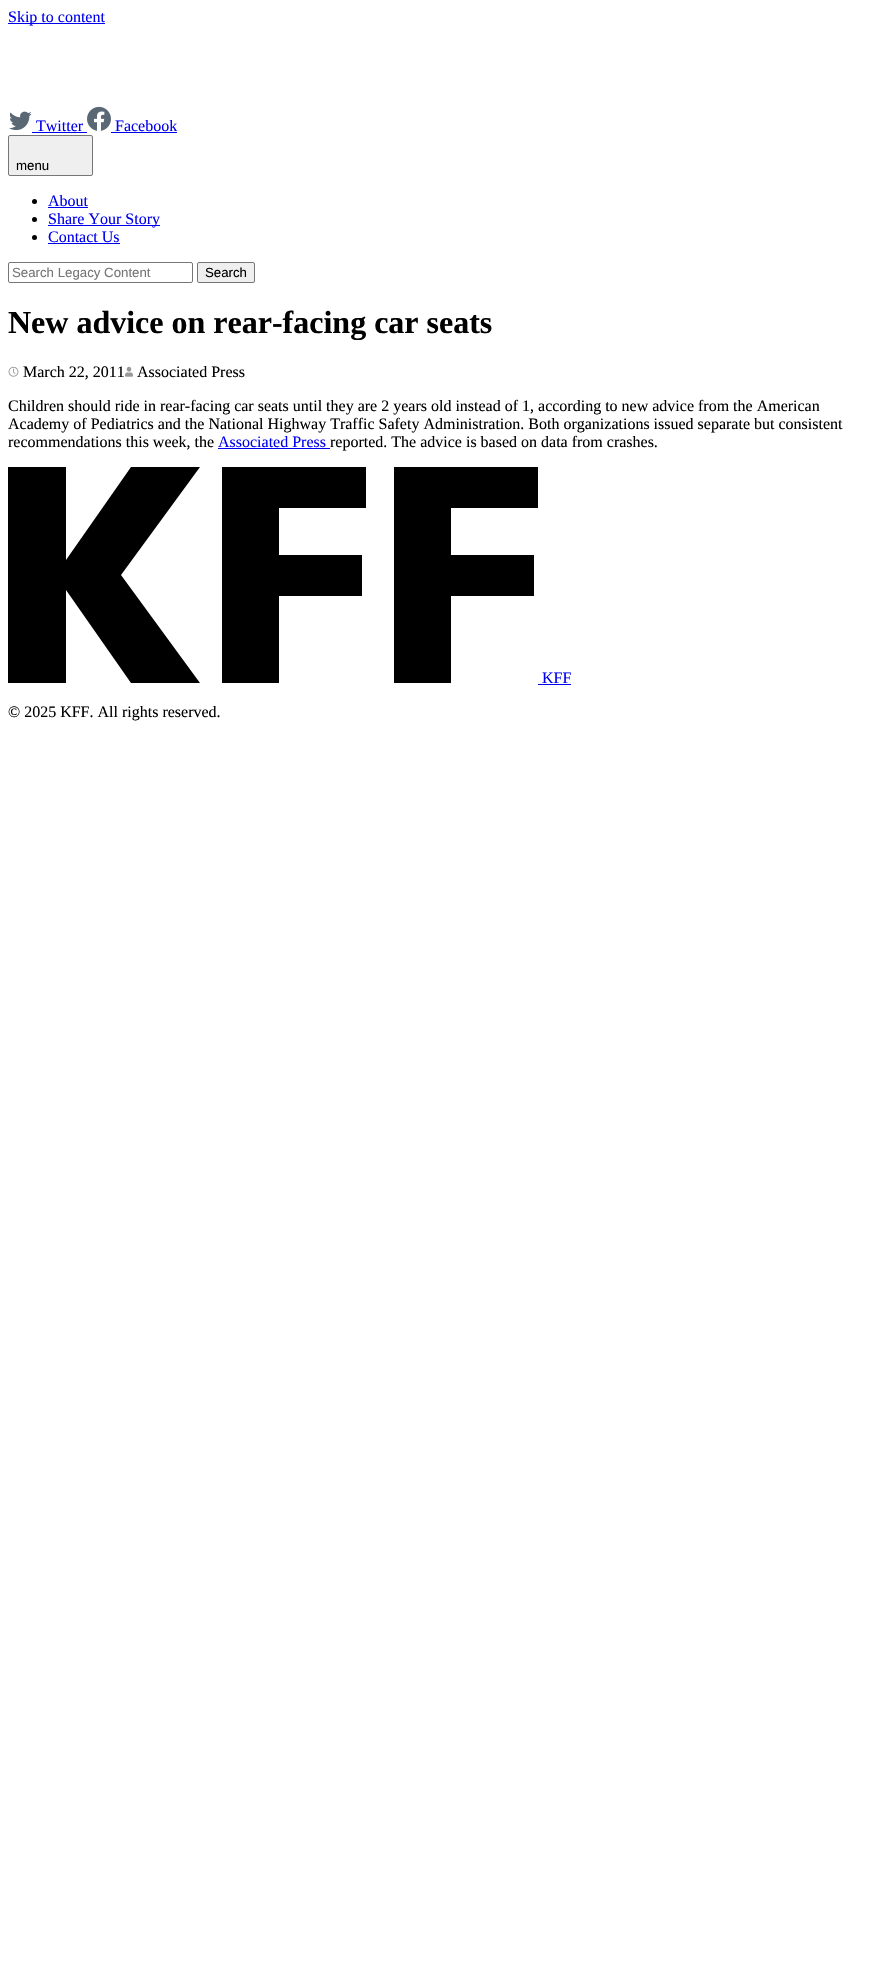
void draw(SkCanvas* c) {
SkPaint p;
p.setAntiAlias(true);
auto F=[&](const char* family, int weight, float size, bool italic = false){SkFontStyle style(weight, SkFontStyle::kNormal_Width,italic ? SkFontStyle::kItalic_Slant : SkFontStyle::kUpright_Slant);SkFont result(fontMgr->matchFamilyStyle(family, style), size);result.setSubpixel(true);return result;};
auto T=[&](const char* s, float x, float y, const SkFont& font){c->drawString(s, x, y, font, p);};
auto R=[&](float x, float y, float w, float h){c->drawRect(SkRect::MakeXYWH(x, y, w, h), p);};
auto I=[&](const char* path, float x, float y, float w, float h){auto image = SkImages::DeferredFromEncodedData(SkData::MakeFromFileName(path));c->drawImageRect(image, SkRect::MakeXYWH(x, y, w, h), SkSamplingOptions());};
auto P=[&](const char* data, bool evenOdd = false){SkPath result = *SkParsePath::FromSVGString(data);if (evenOdd) result.setFillType(SkPathFillType::kEvenOdd);return result;};
c->clear(0xffffffff);
p.setColor(0xff0000ee);
R(8,23,97,1);
auto f1 = F("Liberation Serif",400,16);
T("Skip to content",8,22,f1);
I("1.png",9,111,23,20);
T("Twitter",36,131,f1);
R(32,132,55,1);
I("2.png",87,106,24,25);
T("Facebook",115,131,f1);
R(111,132,66,1);
p.setColor(0xffefefef);
c->drawRoundRect(SkRect::MakeXYWH(8.5,135.5,84,40),1.5,1.5,p);
p.setStroke(true);
p.setStrokeWidth(1);
p.setColor(0xff767676);
c->drawRoundRect(SkRect::MakeXYWH(8.5,135.5,84,40),1.5,1.5,p);
auto f2 = F("Liberation Sans",400,13.25);
p.setStroke(false);
p.setColor(0xff000000);
T("menu",16,170,f2);
c->drawCircle(34.5,201.5,2.5,p);
p.setColor(0xff0000ee);
T("About",48,206,f1);
R(48,207,40,1);
p.setColor(0xff000000);
c->drawCircle(34.5,219.5,2.5,p);
p.setColor(0xff0000ee);
R(48,225,112,1);
T("Share Your Story",48,224,f1);
p.setColor(0xff000000);
c->drawCircle(34.5,237.5,2.5,p);
p.setColor(0xff0000ee);
T("Contact Us",48,242,f1);
R(48,243,72,1);
p.setStroke(true);
p.setColor(0xff767676);
c->drawRoundRect(SkRect::MakeXYWH(8.5,262.5,184,20),1.5,1.5,p);
p.setStroke(false);
p.setColor(0xff757575);
T("Search Legacy Content",12,277,f2);
p.setColor(0xffefefef);
c->drawRoundRect(SkRect::MakeXYWH(197.5,262.5,57,20),1.5,1.5,p);
p.setStroke(true);
p.setColor(0xff767676);
c->drawRoundRect(SkRect::MakeXYWH(197.5,262.5,57,20),1.5,1.5,p);
p.setStroke(false);
p.setColor(0xff000000);
T("Search",205,277,f2);
auto f3 = F("Liberation Serif",700,32);
T("New advice on rear-facing car seats",8,333,f3);
I("3.png",8,366,11,11);
T("March 22, 2011",23,377,f1);
I("4.png",125,366,8,11);
T("Associated Press",137,377,f1);
T("Children should ride in rear-facing car seats until they are 2 years old instead of 1, according to new advice from the American",8,411,f1);
T("Academy of Pediatrics and the National Highway Traffic Safety Administration. Both organizations issued separate but consistent",8,429,f1);
T("recommendations this week, the",8,447,f1);
p.setColor(0xff0000ee);
T("Associated Press",218,447,f1);
R(218,448,112,1);
p.setColor(0xff000000);
T("reported. The advice is based on data from crashes.",330,447,f1);
p.setColor(0xff0000ee);
T("KFF",542,683,f1);
R(538,684,33,1);
p.setColor(0xff000000);
c->drawPath(P("M131 467l-65 93v-93h-58v216h58v-93l65 93h69l-79-108l79-108zm91 0v216h57v-87h83v-41h-83v-47h87v-41zm172 0v216h57v-87h83v-41h-83v-47h87v-41z"),p);
T("© 2025 KFF. All rights reserved.",8,717,f1);
}
